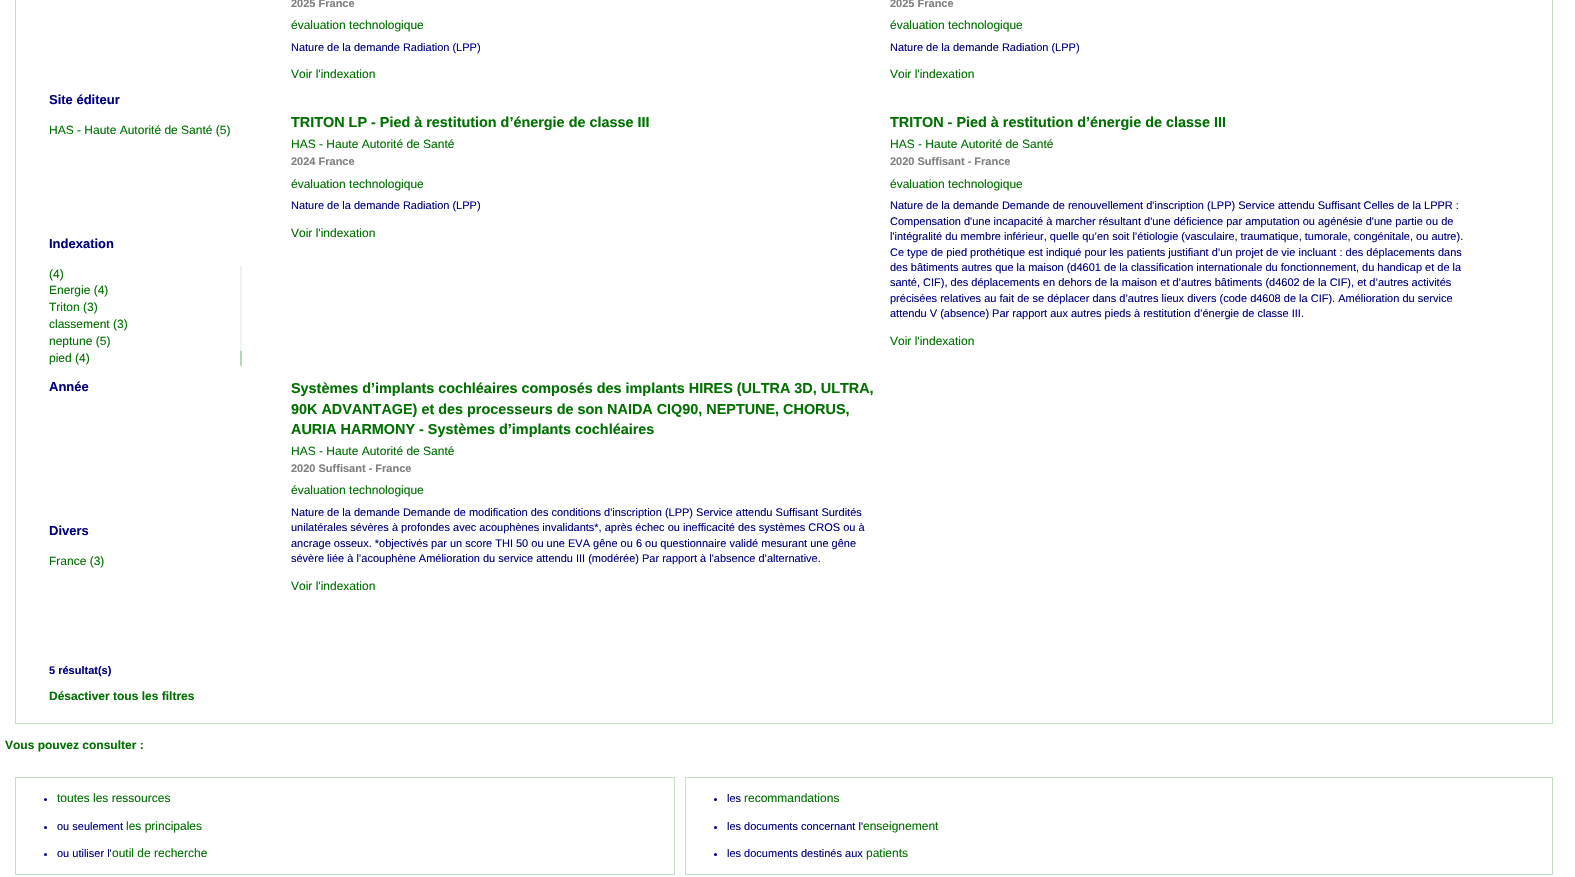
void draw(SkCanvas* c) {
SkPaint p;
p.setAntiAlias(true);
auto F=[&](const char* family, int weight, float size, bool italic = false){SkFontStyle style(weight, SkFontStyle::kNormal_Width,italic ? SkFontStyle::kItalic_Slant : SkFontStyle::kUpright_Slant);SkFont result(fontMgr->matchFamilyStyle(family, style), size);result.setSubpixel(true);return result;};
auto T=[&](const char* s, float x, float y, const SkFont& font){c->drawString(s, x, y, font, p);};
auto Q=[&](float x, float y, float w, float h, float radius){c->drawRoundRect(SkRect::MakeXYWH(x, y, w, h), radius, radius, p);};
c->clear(0xffffffff);
p.setStroke(true);
p.setStrokeWidth(1);
p.setColor(0xffc0e0c0);
c->drawRect(SkRect::MakeXYWH(15.5,-.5,1537,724),p);
auto f1 = F("Liberation Sans",700,13);
p.setStroke(false);
p.setColor(0xff000080);
T("Site éditeur",49,104,f1);
auto f2 = F("Liberation Sans",400,12);
p.setColor(0xff007000);
T("HAS - Haute Autorité de Santé (5)",49,134,f2);
p.setColor(0xff000080);
T("Indexation",49,248,f1);
p.setColor(0xff007000);
T("(4)",49,278,f2);
T("Energie (4)",49,294,f2);
T("Triton (3)",49,311,f2);
T("classement (3)",49,328,f2);
T("neptune (5)",49,345,f2);
T("pied (4)",49,362,f2);
p.setColor(0xffb3d7b3);
Q(240,266,2,100,1);
p.setColor(0xbfffffff);
Q(239,266,4,85,2);
p.setColor(0xff000080);
T("Année",49,391,f1);
T("Divers",49,535,f1);
p.setColor(0xff007000);
T("France (3)",49,565,f2);
auto f3 = F("Liberation Sans",700,11);
p.setColor(0xff000080);
T("5 résultat(s)",49,674,f3);
auto f4 = F("Liberation Sans",700,12);
p.setColor(0xff007000);
T("Désactiver tous les filtres",49,700,f4);
p.setColor(0xff808080);
T("2025 France",291,7,f3);
p.setColor(0xff007000);
T("évaluation technologique",291,29,f2);
auto f5 = F("Liberation Sans",400,11);
p.setColor(0xff000080);
T("Nature de la demande Radiation (LPP)",291,51,f5);
p.setColor(0xff007000);
T("Voir l'indexation",291,78,f2);
p.setColor(0xff808080);
T("2025 France",890,7,f3);
p.setColor(0xff007000);
T("évaluation technologique",890,29,f2);
p.setColor(0xff000080);
T("Nature de la demande Radiation (LPP)",890,51,f5);
p.setColor(0xff007000);
T("Voir l'indexation",890,78,f2);
auto f6 = F("Liberation Sans",700,14.4);
T("TRITON LP - Pied à restitution d’énergie de classe III",291,127,f6);
T("HAS - Haute Autorité de Santé",291,148,f2);
p.setColor(0xff808080);
T("2024 France",291,165,f3);
p.setColor(0xff007000);
T("évaluation technologique",291,188,f2);
p.setColor(0xff000080);
T("Nature de la demande Radiation (LPP)",291,209,f5);
p.setColor(0xff007000);
T("Voir l'indexation",291,237,f2);
T("TRITON - Pied à restitution d’énergie de classe III",890,127,f6);
T("HAS - Haute Autorité de Santé",890,148,f2);
p.setColor(0xff808080);
T("2020 Suffisant - France",890,165,f3);
p.setColor(0xff007000);
T("évaluation technologique",890,188,f2);
p.setColor(0xff000080);
T("Nature de la demande Demande de renouvellement d'inscription (LPP) Service attendu Suffisant Celles de la LPPR :",890,209,f5);
T("Compensation d'une incapacité à marcher résultant d'une déficience par amputation ou agénésie d'une partie ou de",890,225,f5);
T("l'intégralité du membre inférieur, quelle qu’en soit l’étiologie (vasculaire, traumatique, tumorale, congénitale, ou autre).",890,240,f5);
T("Ce type de pied prothétique est indiqué pour les patients justifiant d’un projet de vie incluant : des déplacements dans",890,256,f5);
T("des bâtiments autres que la maison (d4601 de la classification internationale du fonctionnement, du handicap et de la",890,271,f5);
T("santé, CIF), des déplacements en dehors de la maison et d’autres bâtiments (d4602 de la CIF), et d’autres activités",890,286,f5);
T("précisées relatives au fait de se déplacer dans d’autres lieux divers (code d4608 de la CIF). Amélioration du service",890,302,f5);
T("attendu V (absence) Par rapport aux autres pieds à restitution d’énergie de classe III.",890,317,f5);
p.setColor(0xff007000);
T("Voir l'indexation",890,345,f2);
T("Systèmes d’implants cochléaires composés des implants HIRES (ULTRA 3D, ULTRA,",291,393,f6);
T("90K ADVANTAGE) et des processeurs de son NAIDA CIQ90, NEPTUNE, CHORUS,",291,414,f6);
T("AURIA HARMONY - Systèmes d’implants cochléaires",291,434,f6);
T("HAS - Haute Autorité de Santé",291,455,f2);
p.setColor(0xff808080);
T("2020 Suffisant - France",291,472,f3);
p.setColor(0xff007000);
T("évaluation technologique",291,494,f2);
p.setColor(0xff000080);
T("Nature de la demande Demande de modification des conditions d'inscription (LPP) Service attendu Suffisant Surdités",291,516,f5);
T("unilatérales sévères à profondes avec acouphènes invalidants*, après échec ou inefficacité des systèmes CROS ou à",291,531,f5);
T("ancrage osseux. *objectivés par un score THI 50 ou une EVA gêne ou 6 ou questionnaire validé mesurant une gêne",291,547,f5);
T("sévère liée à l’acouphène Amélioration du service attendu III (modérée) Par rapport à l'absence d’alternative.",291,562,f5);
p.setColor(0xff007000);
T("Voir l'indexation",291,590,f2);
T("Vous pouvez consulter :",5,749,f4);
p.setStroke(true);
p.setColor(0xffc0e0c0);
c->drawRect(SkRect::MakeXYWH(15.5,777.5,659,97),p);
p.setStroke(false);
p.setColor(0xff000080);
c->drawCircle(45.5,799.5,1.5,p);
p.setColor(0xff007000);
T("toutes les ressources",57,802,f2);
p.setColor(0xff000080);
c->drawCircle(45.5,827.5,1.5,p);
T("ou seulement",57,830,f5);
p.setColor(0xff007000);
T("les principales",126,830,f2);
p.setColor(0xff000080);
c->drawCircle(45.5,854.5,1.5,p);
T("ou utiliser l'",57,857,f5);
p.setColor(0xff007000);
T("outil de recherche",112,857,f2);
p.setStroke(true);
p.setColor(0xffc0e0c0);
c->drawRect(SkRect::MakeXYWH(685.5,777.5,867,97),p);
p.setStroke(false);
p.setColor(0xff000080);
c->drawCircle(715.5,799.5,1.5,p);
T("les",727,802,f5);
p.setColor(0xff007000);
T("recommandations",744,802,f2);
p.setColor(0xff000080);
c->drawCircle(715.5,827.5,1.5,p);
T("les documents concernant l'",727,830,f5);
p.setColor(0xff007000);
T("enseignement",863,830,f2);
p.setColor(0xff000080);
c->drawCircle(715.5,854.5,1.5,p);
T("les documents destinés aux",727,857,f5);
p.setColor(0xff007000);
T("patients",866,857,f2);
}
